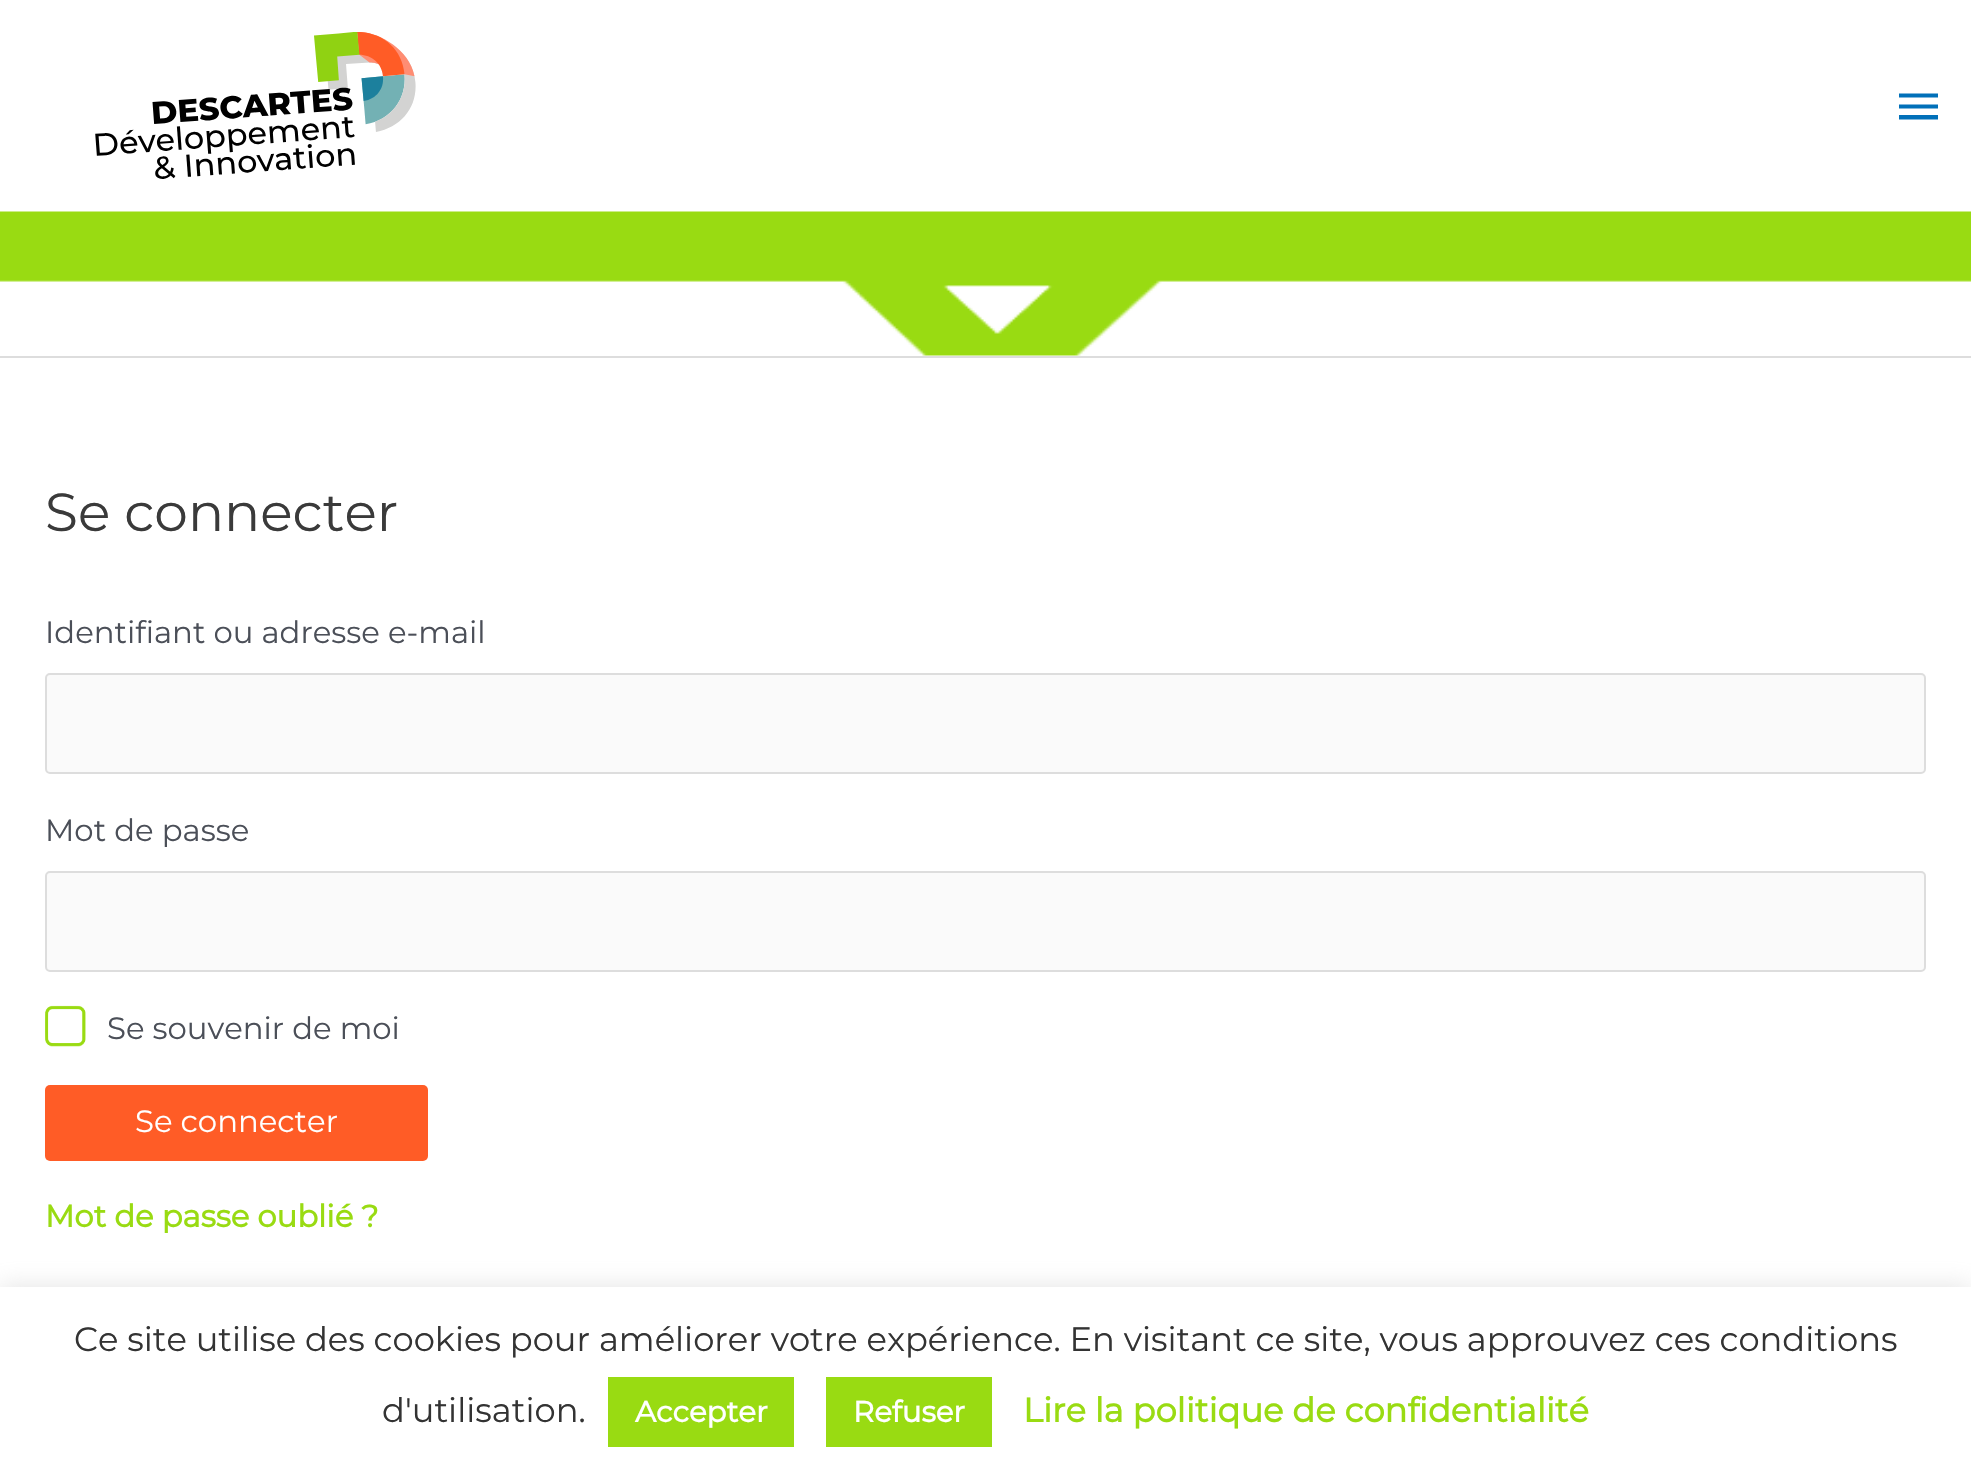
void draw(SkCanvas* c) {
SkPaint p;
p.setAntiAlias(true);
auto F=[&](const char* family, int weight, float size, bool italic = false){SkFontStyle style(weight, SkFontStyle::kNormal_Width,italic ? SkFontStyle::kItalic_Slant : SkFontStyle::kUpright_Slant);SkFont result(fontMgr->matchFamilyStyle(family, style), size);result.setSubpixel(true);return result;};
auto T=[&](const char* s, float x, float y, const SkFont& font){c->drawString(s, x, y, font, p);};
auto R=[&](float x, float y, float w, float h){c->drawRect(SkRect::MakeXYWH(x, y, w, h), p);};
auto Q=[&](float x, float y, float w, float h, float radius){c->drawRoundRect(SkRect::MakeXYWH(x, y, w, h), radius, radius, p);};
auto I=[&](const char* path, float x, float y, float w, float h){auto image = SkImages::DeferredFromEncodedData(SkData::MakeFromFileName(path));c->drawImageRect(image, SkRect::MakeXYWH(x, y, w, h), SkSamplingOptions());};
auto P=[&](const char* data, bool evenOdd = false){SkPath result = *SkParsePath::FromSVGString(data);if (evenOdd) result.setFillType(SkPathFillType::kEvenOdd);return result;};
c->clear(0xffffffff);
p.setColor(0xffdddddd);
R(0,356,1971,2);
I("1.png",95,32,321,147);
p.setColor(0xff0170b9);
c->drawPath(P("M1899 93.5h39v4h-39zm0 15v-4h39v4zm0 11v-4.5h39v4.5z"),p);
I("2.png",0,211,1971,145);
auto f1 = F("Montserrat",100,53.5);
p.setColor(0xff3a3a3a);
T("Se connecter",45,531,f1);
auto f2 = F("Montserrat",100,30.75);
p.setColor(0xff4b4f58);
T("Identifiant ou adresse e-mail",45,643,f2);
p.setColor(0xfffafafa);
c->drawRoundRect(SkRect::MakeXYWH(46,674,1879,99),4,4,p);
p.setStroke(true);
p.setStrokeWidth(2);
p.setColor(0xffdddddd);
c->drawRoundRect(SkRect::MakeXYWH(46,674,1879,99),4,4,p);
p.setStroke(false);
p.setColor(0xff4b4f58);
T("Mot de passe",45,841,f2);
p.setColor(0xfffafafa);
c->drawRoundRect(SkRect::MakeXYWH(46,872,1879,99),4,4,p);
p.setStroke(true);
p.setColor(0xffdddddd);
c->drawRoundRect(SkRect::MakeXYWH(46,872,1879,99),4,4,p);
I("3.png",45,1005,41,42);
p.setStroke(false);
p.setColor(0xff4b4f58);
T("Se souvenir de moi",107,1039,f2);
p.setColor(0xffff5c26);
Q(45,1085,383,76,5);
p.setColor(0xffffffff);
T("Se connecter",135,1132,f2);
auto f3 = F("Montserrat",700,30.75);
p.setColor(0xff99db12);
T("Mot de passe oublié ?",45,1227,f3);
p.setColor(0x4dacabab);
p.setMaskFilter(SkMaskFilter::MakeBlur(kNormal_SkBlurStyle, 11));
c->drawRect(SkRect::MakeXYWH(0,1285,1971,187),p);
p.setMaskFilter(nullptr);
p.setColor(0xffffffff);
R(0,1287,1971,185);
auto f4 = F("Montserrat",100,33.75);
p.setColor(0xff333333);
T("Ce site utilise des cookies pour améliorer votre expérience. En visitant ce site, vous approuvez ces conditions",74,1351,f4);
T("d'utilisation.",382,1422,f4);
p.setColor(0xff99db12);
R(608,1377,186,70);
auto f5 = F("Montserrat",700,29.25);
p.setColor(0xffffffff);
T("Accepter",635,1422,f5);
p.setColor(0xff99db12);
R(826,1377,166,70);
p.setColor(0xffffffff);
T("Refuser",853,1422,f5);
auto f6 = F("Montserrat",700,33.75);
p.setColor(0xff99db12);
T("Lire la politique de confidentialité",1023,1422,f6);
}
